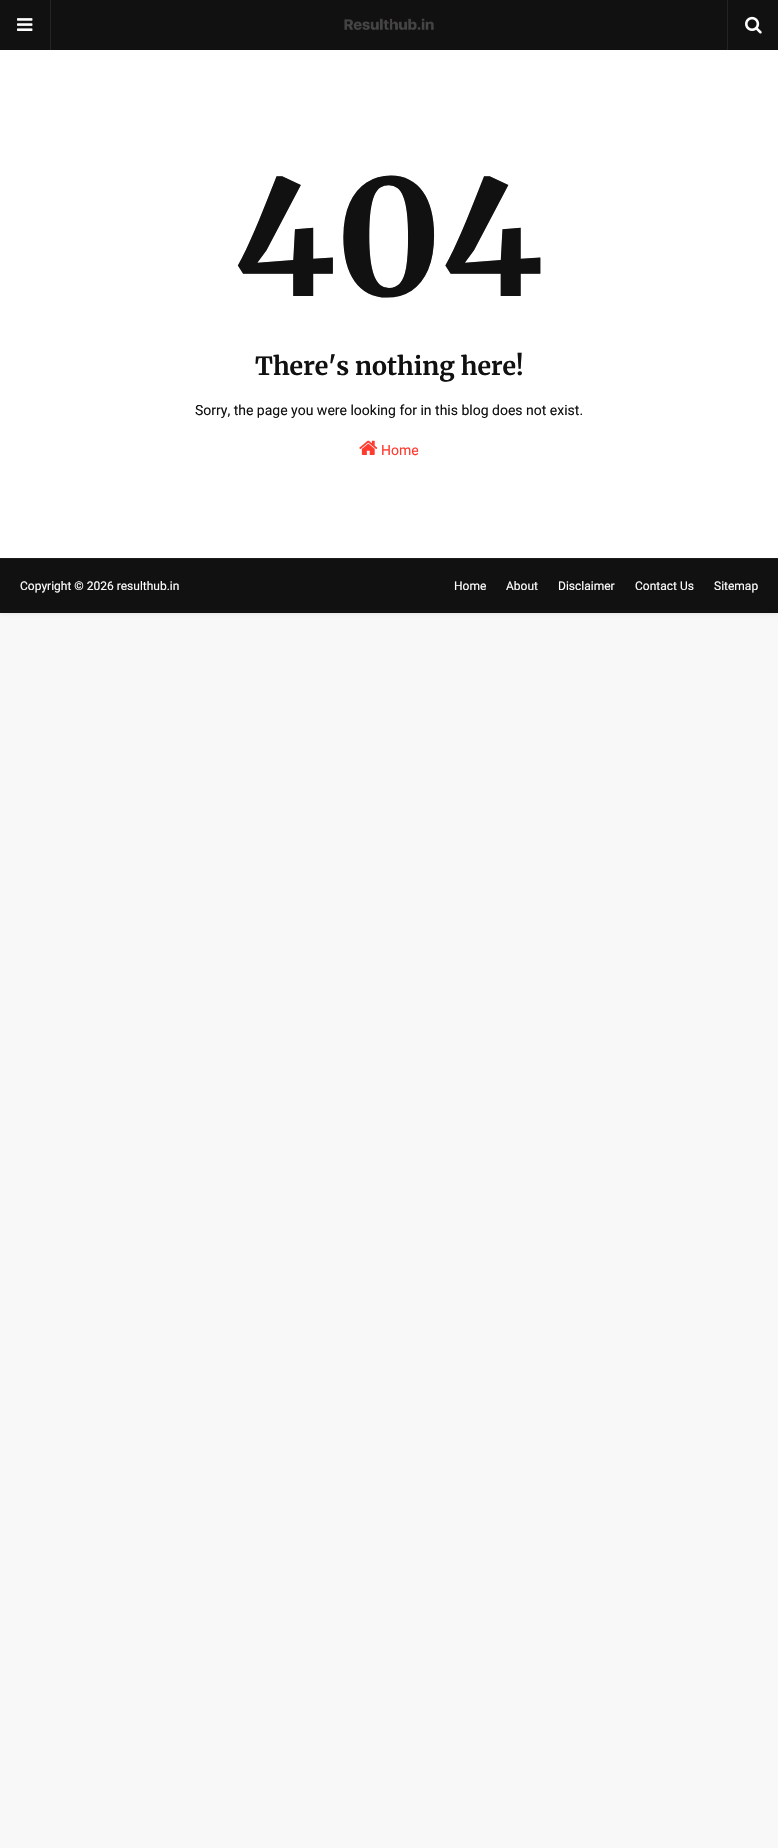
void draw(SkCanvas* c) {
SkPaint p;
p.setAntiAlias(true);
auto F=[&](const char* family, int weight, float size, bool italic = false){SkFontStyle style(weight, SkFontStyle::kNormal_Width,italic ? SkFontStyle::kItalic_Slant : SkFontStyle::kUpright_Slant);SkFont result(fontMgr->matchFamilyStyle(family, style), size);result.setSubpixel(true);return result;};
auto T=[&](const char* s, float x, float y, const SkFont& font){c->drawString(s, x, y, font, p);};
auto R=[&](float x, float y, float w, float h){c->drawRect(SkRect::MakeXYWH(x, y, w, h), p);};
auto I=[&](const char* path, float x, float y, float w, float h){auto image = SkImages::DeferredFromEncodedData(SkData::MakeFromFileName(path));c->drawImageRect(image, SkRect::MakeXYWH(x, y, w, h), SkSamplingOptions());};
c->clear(0xfff8f8f8);
p.setColor(0x1a000000);
p.setMaskFilter(SkMaskFilter::MakeBlur(kNormal_SkBlurStyle, 2.5));
c->drawRect(SkRect::MakeXYWH(0,0,778,613),p);
p.setMaskFilter(nullptr);
p.setColor(0xffffffff);
R(0,50,778,508);
p.setColor(0xff111111);
R(0,0,778,50);
p.setColor(0xff242424);
R(50,0,1,50);
I("1.png",17,18,16,13);
I("2.png",344,18,90,12);
R(727,0,1,50);
I("3.png",745,16,17,18);
auto f1 = F("Merriweather",700,160);
p.setColor(0xff111111);
T("404",234,296,f1);
auto f2 = F("Merriweather",700,25);
T("There's nothing here!",255,375,f2);
auto f3 = F("Roboto",400,14);
T("Sorry, the page you were looking for in this blog does not exist.",195,415,f3);
I("4.png",359,440,19,15);
p.setColor(0xffff3b30);
T("Home",381,455,f3);
p.setColor(0xff111111);
R(0,559,778,54);
p.setColor(0xff1d1d1d);
R(0,558,778,1);
auto f4 = F("Roboto",400,12);
p.setColor(0xffffffff);
T("Copyright © 2026 resulthub.in",20,590,f4);
T("Home",454,590,f4);
T("About",506,590,f4);
T("Disclaimer",558,590,f4);
T("Contact Us",635,590,f4);
T("Sitemap",714,590,f4);
}
